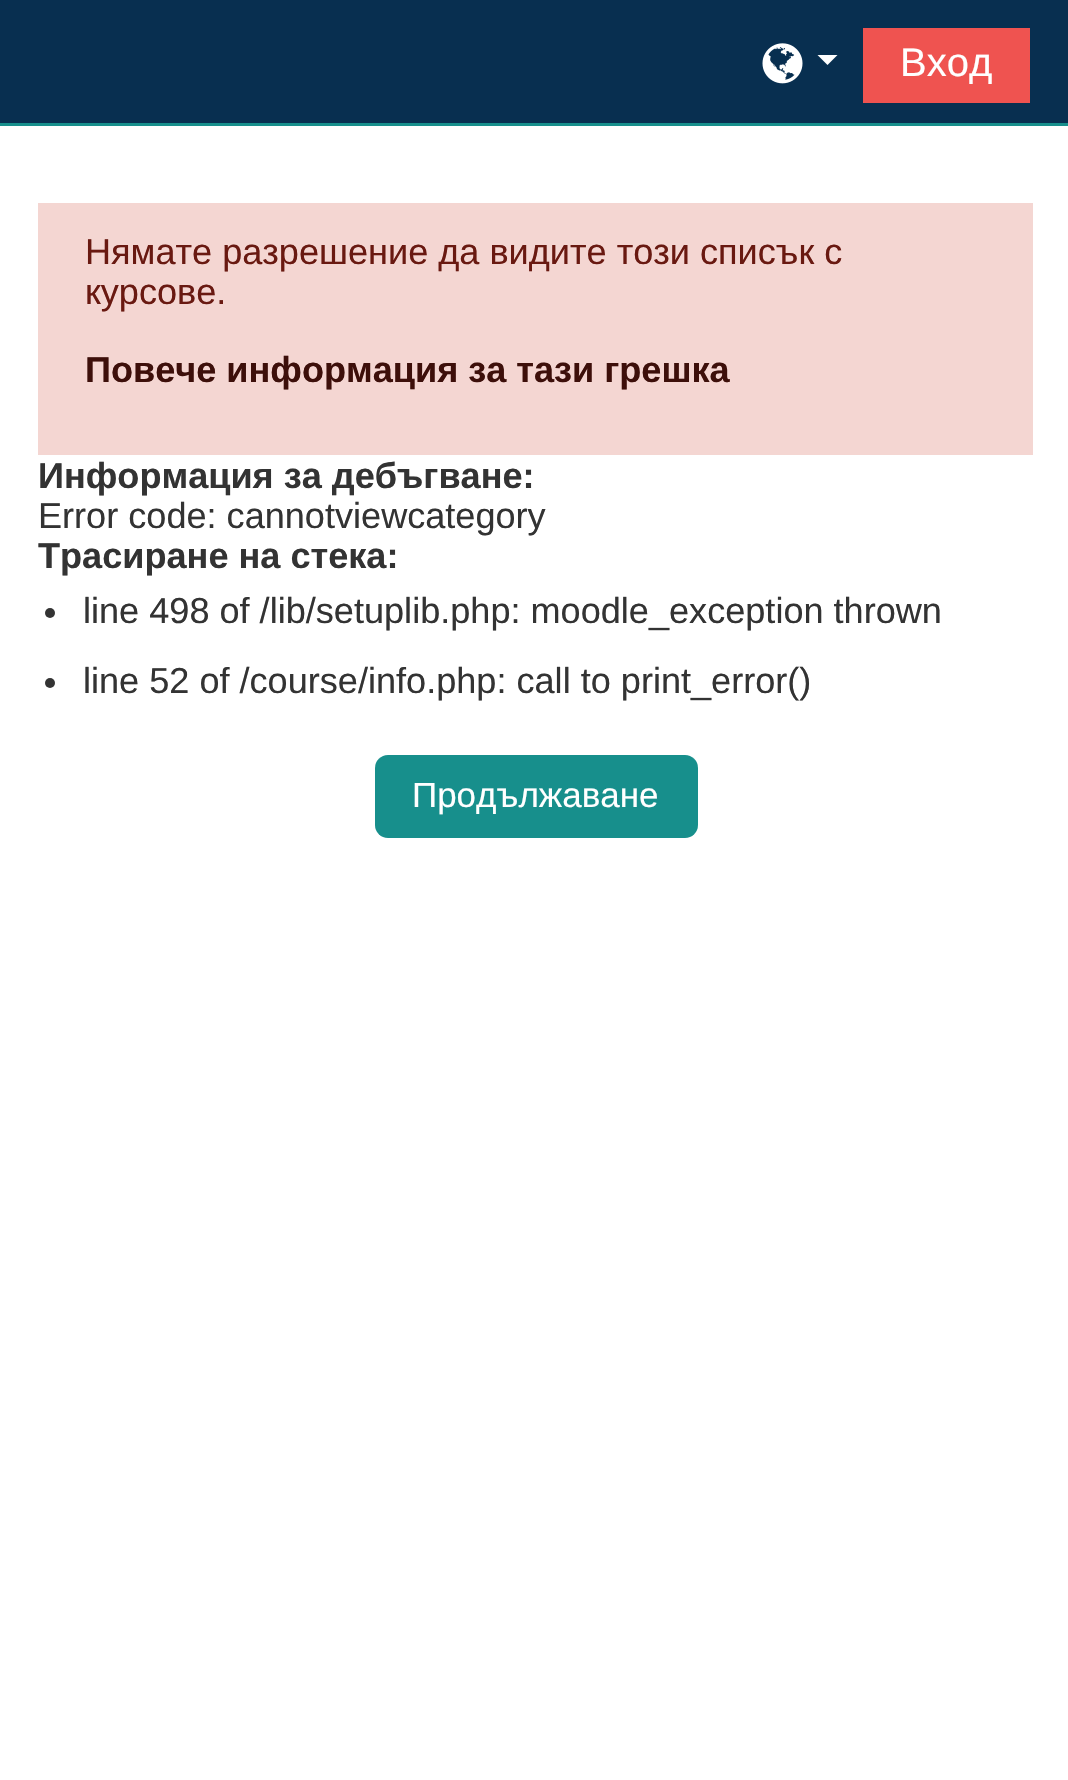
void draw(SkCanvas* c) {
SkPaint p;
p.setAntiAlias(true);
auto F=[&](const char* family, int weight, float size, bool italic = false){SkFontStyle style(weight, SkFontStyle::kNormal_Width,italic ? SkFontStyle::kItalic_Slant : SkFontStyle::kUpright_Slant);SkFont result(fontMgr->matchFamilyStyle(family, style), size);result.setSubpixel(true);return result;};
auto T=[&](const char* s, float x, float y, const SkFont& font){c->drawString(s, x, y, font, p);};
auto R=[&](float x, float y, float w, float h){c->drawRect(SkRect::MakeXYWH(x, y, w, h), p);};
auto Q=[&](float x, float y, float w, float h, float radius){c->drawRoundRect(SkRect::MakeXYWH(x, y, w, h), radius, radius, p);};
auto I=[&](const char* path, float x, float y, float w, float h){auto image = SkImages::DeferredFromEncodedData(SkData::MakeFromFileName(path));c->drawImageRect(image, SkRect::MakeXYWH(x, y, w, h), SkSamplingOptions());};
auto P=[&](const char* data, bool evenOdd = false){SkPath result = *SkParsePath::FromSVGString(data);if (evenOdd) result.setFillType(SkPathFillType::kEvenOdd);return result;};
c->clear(0xffffffff);
p.setColor(0xff082f50);
R(0,0,1068,123);
p.setColor(0xff178f8c);
R(0,123,1068,3);
I("1.png",762,43,41,41);
p.setColor(0xffffffff);
c->drawPath(P("M817.5 55h20l-10 10z"),p);
p.setColor(0xffef5350);
R(863,28,167,75);
auto f1 = F("Liberation Sans",400,40);
p.setColor(0xffffffff);
T("Вход",900,76,f1);
p.setColor(0xfff4d6d2);
R(38,203,995,252);
auto f2 = F("Liberation Sans",400,36.1);
p.setColor(0xff691911);
T("Нямате разрешение да видите този списък с",85,264,f2);
T("курсове.",85,304,f2);
auto f3 = F("Liberation Sans",700,36.1);
p.setColor(0xff3d0f0a);
T("Повече информация за тази грешка",85,382,f3);
p.setColor(0xff333333);
T("Информация за дебъгване:",38,488,f3);
T("Error code: cannotviewcategory",38,528,f2);
T("Трасиране на стека:",38,568,f3);
c->drawCircle(50,613,5,p);
T("line 498 of /lib/setuplib.php: moodle_exception thrown",83,623,f2);
c->drawCircle(50,683,5,p);
T("line 52 of /course/info.php: call to print_error()",83,693,f2);
p.setColor(0xff178f8c);
Q(375,755,323,83,13);
auto f4 = F("Liberation Sans",400,35);
p.setColor(0xffffffff);
T("Продължаване",412,807,f4);
}
